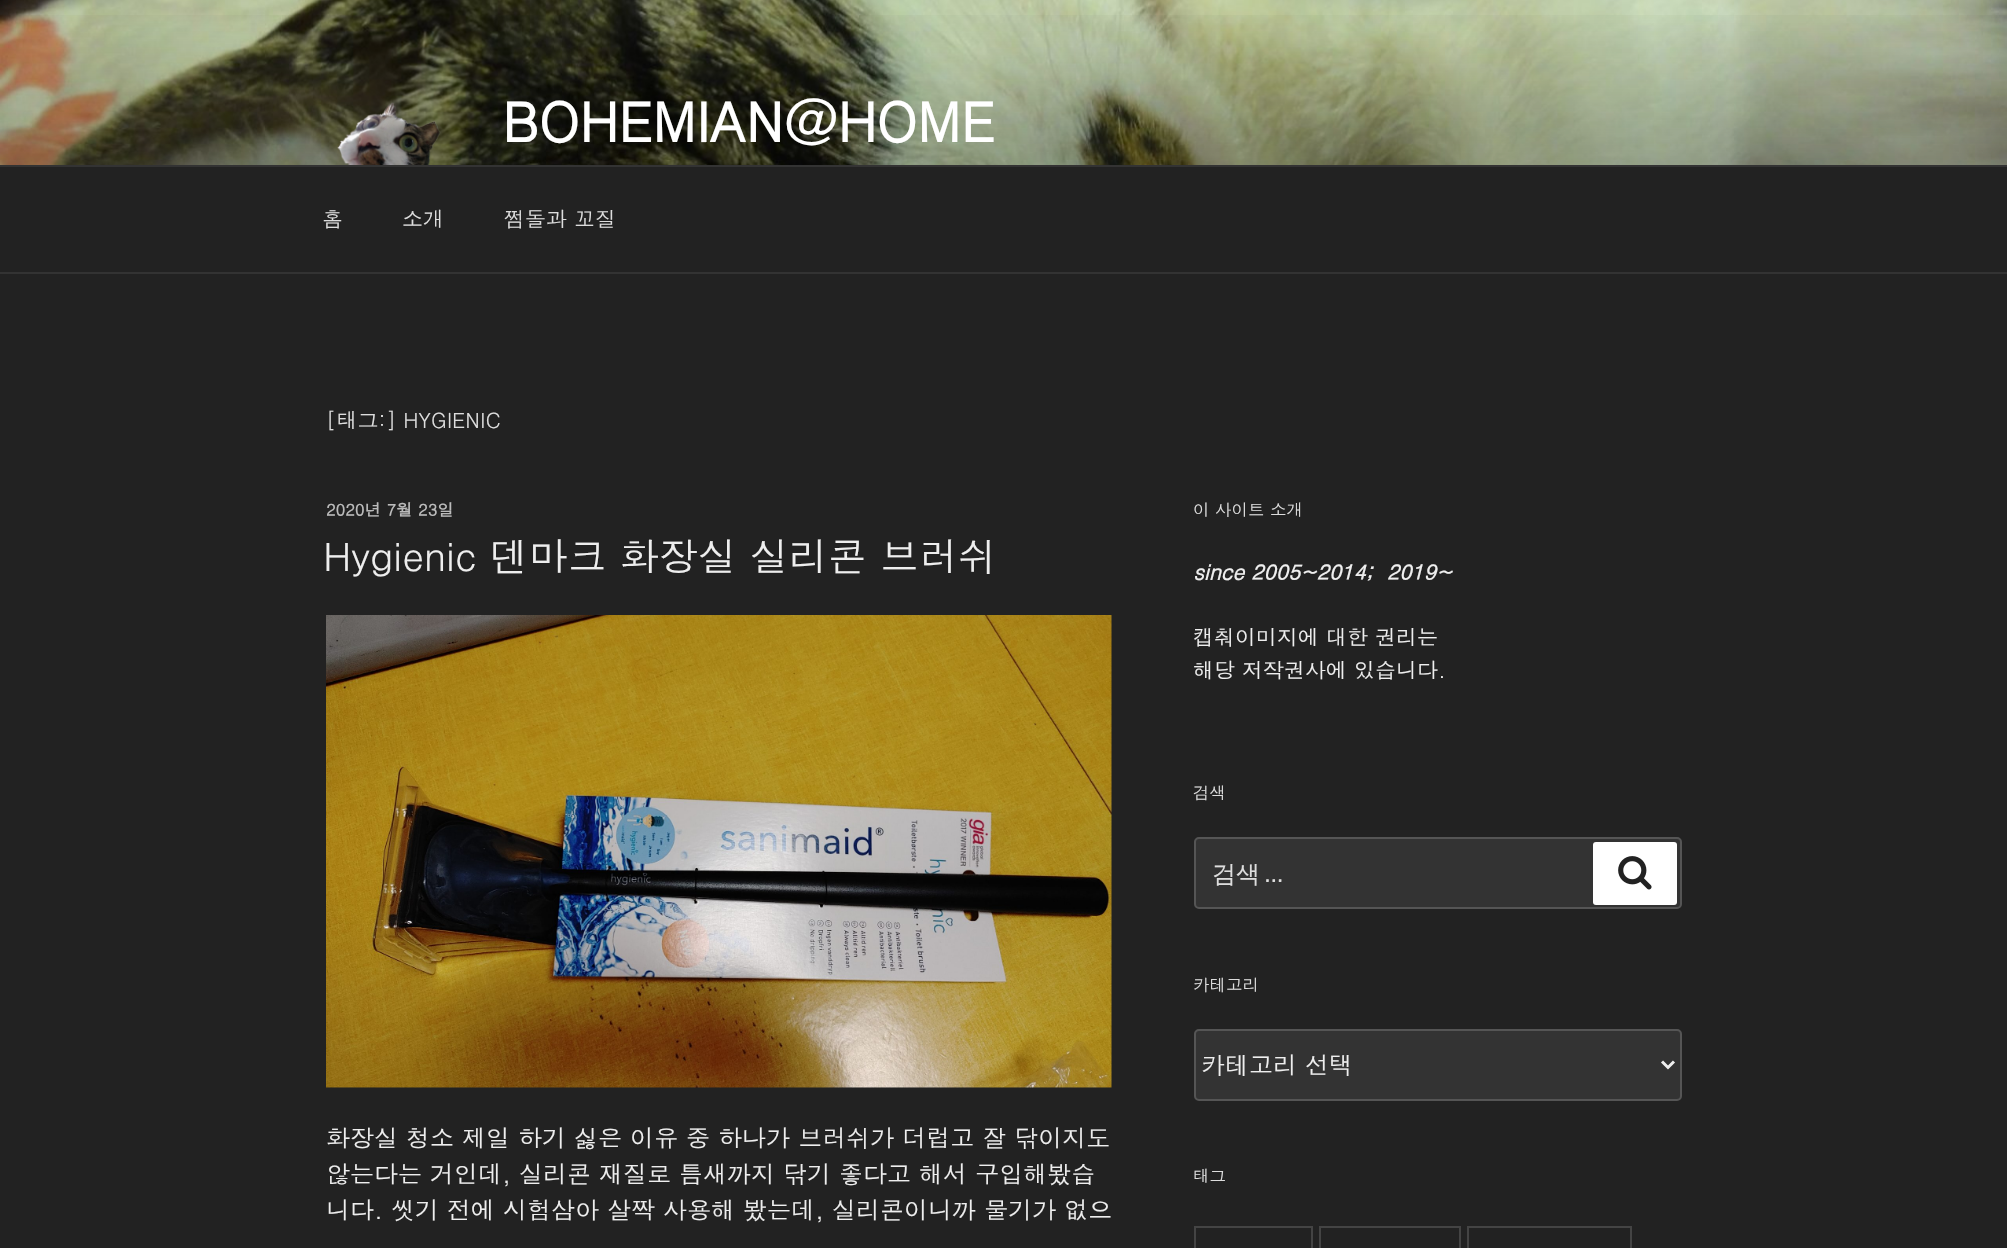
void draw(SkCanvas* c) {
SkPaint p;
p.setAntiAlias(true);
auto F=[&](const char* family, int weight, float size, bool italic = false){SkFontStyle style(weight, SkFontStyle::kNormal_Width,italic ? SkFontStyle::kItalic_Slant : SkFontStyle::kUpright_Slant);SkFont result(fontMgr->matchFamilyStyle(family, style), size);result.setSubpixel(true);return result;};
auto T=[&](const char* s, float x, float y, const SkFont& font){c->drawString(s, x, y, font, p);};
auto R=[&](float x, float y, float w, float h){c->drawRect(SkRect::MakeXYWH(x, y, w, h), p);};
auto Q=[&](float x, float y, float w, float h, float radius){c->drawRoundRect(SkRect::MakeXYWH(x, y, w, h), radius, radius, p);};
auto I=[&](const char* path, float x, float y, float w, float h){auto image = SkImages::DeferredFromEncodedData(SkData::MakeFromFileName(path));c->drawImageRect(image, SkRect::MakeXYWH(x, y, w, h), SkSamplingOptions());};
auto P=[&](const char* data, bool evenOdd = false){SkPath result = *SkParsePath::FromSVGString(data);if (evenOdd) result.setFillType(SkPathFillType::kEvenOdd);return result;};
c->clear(0xff222222);
I("1.png",0,0,2007,165);
{
const SkColor colors[] = {0x00000000,0x4d000000,0x4d000000};
const float stops[] = {0,.75,1};
const SkPoint ends[] = {{1004,0}, {1004,273}};
p.setShader(SkGradientShader::MakeLinear(ends, colors, stops, 3, SkTileMode::kClamp));
p.setAlpha(255);
}
R(0,15,2007,150);
I("2.png",337,102,104,63);
auto f1 = F("Dotum",700,54);
p.setShader(nullptr);
p.setColor(0xffffffff);
T("BOHEMIAN@HOME",502,142,f1);
p.setColor(0xff333333);
R(0,165,2007,2);
R(0,272,2007,2);
auto f2 = F("Dotum",400,21);
p.setColor(0xffdddddd);
T("홈",322,227,f2);
T("소개",402,227,f2);
T("쩜돌과 꼬질",504,227,f2);
T("[태그:] HYGIENIC",326,428,f2);
auto f3 = F("Dotum",700,16.5);
p.setColor(0xffbbbbbb);
T("2020년 7월 23일",326,516,f3);
auto f4 = F("Dotum",400,39);
p.setColor(0xffeeeeee);
T("Hygienic 덴마크 화장실 실리콘 브러쉬",323,571,f4);
I("3.png",326,615,786,473);
auto f5 = F("Dotum",400,24);
T("화장실 청소 제일 하기 싫은 이유 중 하나가 브러쉬가 더럽고 잘 닦이지도",326,1147,f5);
T("않는다는 거인데, 실리콘 재질로 틈새까지 닦기 좋다고 해서 구입해봤습",326,1183,f5);
T("니다. 씻기 전에 시험삼아 살짝 사용해 봤는데, 실리콘이니까 물기가 없으",326,1219,f5);
auto f6 = F("Dotum",400,16.5);
p.setColor(0xffdddddd);
T("이 사이트 소개",1193,516,f6);
auto f7 = F("Dotum",700,21,true);
p.setColor(0xffeeeeee);
T("since 2005~2014;  2019~",1193,580,f7);
T("캡춰이미지에 대한 권리는",1193,645,f2);
T("해당 저작권사에 있습니다.",1193,678,f2);
p.setColor(0xffdddddd);
T("검색",1193,799,f6);
p.setColor(0xff333333);
c->drawRoundRect(SkRect::MakeXYWH(1195,838,486,70),4,4,p);
p.setStroke(true);
p.setStrokeWidth(2);
p.setColor(0xff555555);
c->drawRoundRect(SkRect::MakeXYWH(1195,838,486,70),4,4,p);
auto f8 = F("WenQuanYi Zen Hei",500,24);
p.setStroke(false);
p.setColor(0xffdddddd);
T("검색",1212,882,f8);
auto f9 = F("Libre Franklin",100,24);
T("…",1265,882,f9);
p.setColor(0xffffffff);
Q(1593,842,84,63,3);
I("4.png",1618,856,34,34);
p.setColor(0xffdddddd);
T("카테고리",1193,991,f6);
p.setColor(0xff333333);
c->drawRoundRect(SkRect::MakeXYWH(1195,1030,486,70),4,4,p);
p.setStroke(true);
p.setColor(0xff555555);
c->drawRoundRect(SkRect::MakeXYWH(1195,1030,486,70),4,4,p);
p.setStrokeWidth(3);
p.setColor(0xffeeeeee);
c->drawPath(P("M1662 1061.5l6 6l6-6"),p);
p.setStroke(false);
T("카테고리 선택",1201,1074,f5);
p.setColor(0xffdddddd);
T("태그",1193,1182,f6);
p.setStroke(true);
p.setStrokeWidth(2);
p.setColor(0xff444444);
c->drawRect(SkRect::MakeXYWH(1195,1227,117,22),p);
c->drawRect(SkRect::MakeXYWH(1320,1227,140,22),p);
c->drawRect(SkRect::MakeXYWH(1468,1227,163,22),p);
}
